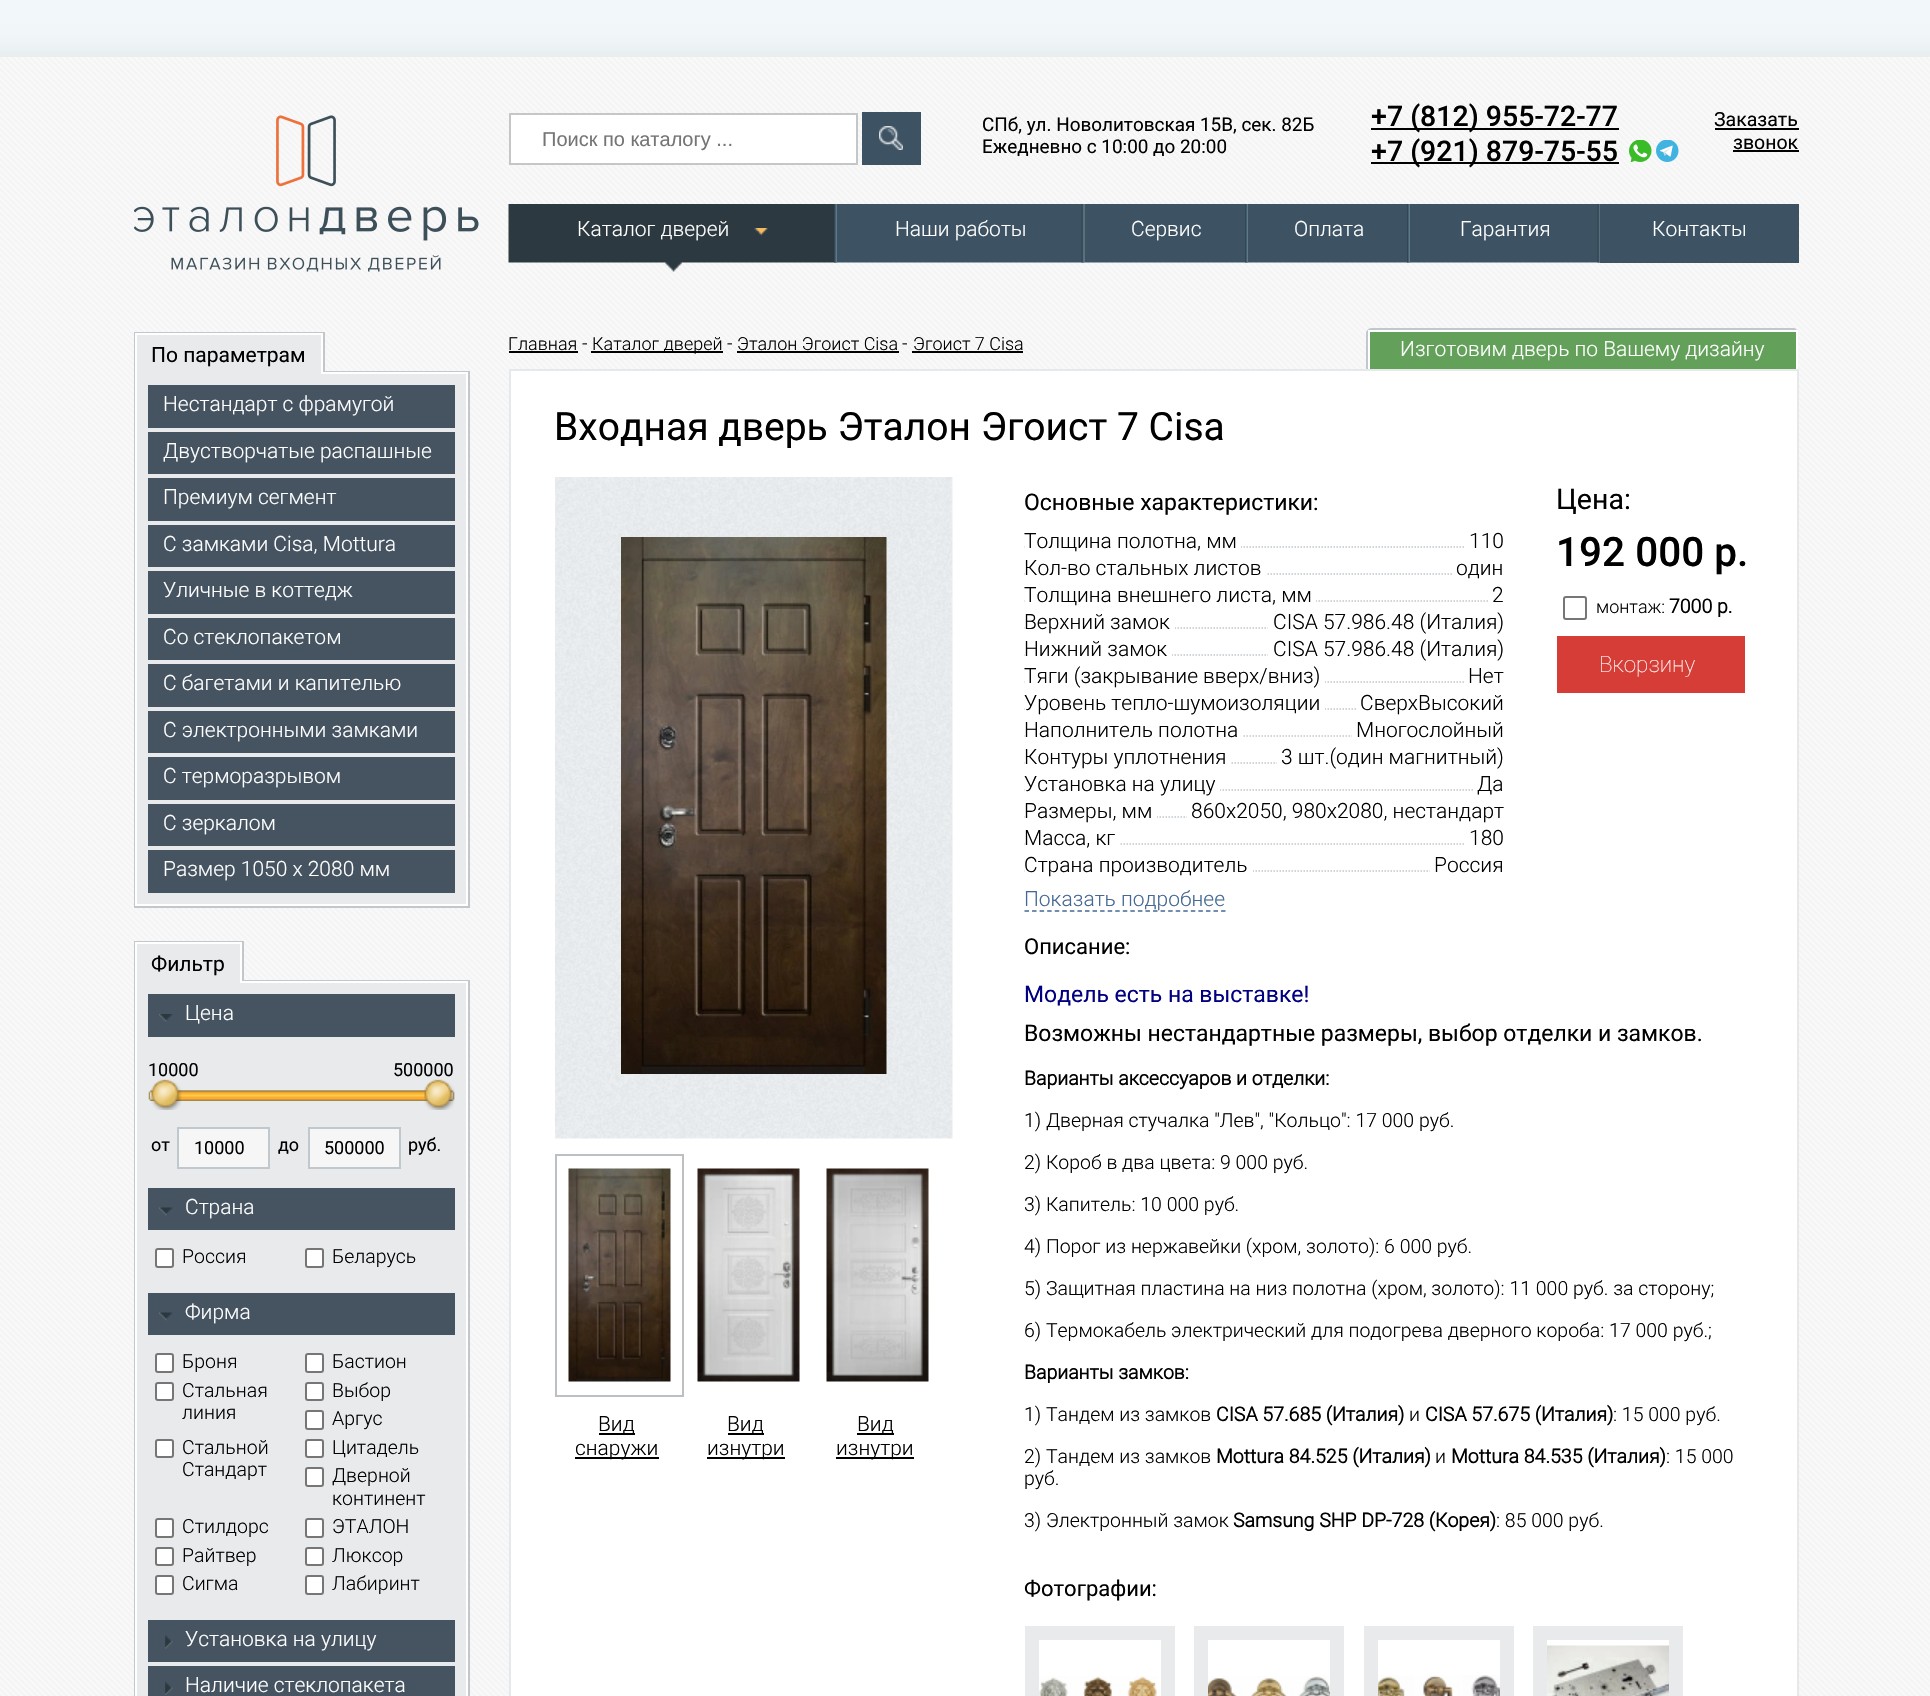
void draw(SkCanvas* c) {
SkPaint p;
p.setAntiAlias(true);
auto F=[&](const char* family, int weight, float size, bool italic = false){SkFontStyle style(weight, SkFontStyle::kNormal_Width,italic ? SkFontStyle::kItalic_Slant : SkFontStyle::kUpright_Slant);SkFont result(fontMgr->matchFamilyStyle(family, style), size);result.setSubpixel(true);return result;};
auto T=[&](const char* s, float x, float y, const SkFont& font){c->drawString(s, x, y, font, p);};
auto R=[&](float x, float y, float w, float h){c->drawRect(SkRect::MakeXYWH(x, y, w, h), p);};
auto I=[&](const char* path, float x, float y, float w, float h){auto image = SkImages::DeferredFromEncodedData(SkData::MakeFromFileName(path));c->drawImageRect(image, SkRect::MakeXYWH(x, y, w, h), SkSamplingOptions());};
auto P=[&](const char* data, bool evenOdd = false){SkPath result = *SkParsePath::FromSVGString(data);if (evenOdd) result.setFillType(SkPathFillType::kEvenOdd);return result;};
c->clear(0xffffffff);
I("1.png",0,57,1930,1639);
I("2.png",0,0,1930,57);
I("3.png",134,115,345,157);
p.setColor(0xffffffff);
c->drawRect(SkRect::MakeXYWH(510,114,347,50),p);
p.setStroke(true);
p.setStrokeWidth(2);
p.setColor(0xffc4c6c7);
c->drawRect(SkRect::MakeXYWH(510,114,347,50),p);
auto f1 = F("Liberation Sans",400,20);
p.setStroke(false);
p.setColor(0xff757575);
T("Поиск по каталогу ...",542,146,f1);
p.setColor(0xff3d5363);
R(862,112,59,53);
I("4.png",879,126,24,24);
auto f2 = F("Roboto",400,18.9);
p.setColor(0xff000000);
T("СПб, ул. Новолитовская 15В, сек. 82Б",982,131,f2);
T("Ежедневно с 10:00 до 20:00",982,153,f2);
R(1371,128,248,2);
auto f3 = F("Roboto",500,28.5);
T("+7 (812) 955-72-77",1371,126,f3);
auto f4 = F("Roboto",400,19.5);
T("Заказать",1714,126,f4);
R(1715,128,84,2);
T("звонок",1733,149,f4);
R(1733,150,66,2);
R(1371,162,248,2);
T("+7 (921) 879-75-55",1371,161,f3);
I("5.png",1629,140,23,22);
I("6.png",1656,140,23,22);
I("7.png",508,204,329,68);
I("8.png",754,228,14,8);
auto f5 = F("Roboto",300,21);
p.setColor(0xffffffff);
T("Каталог дверей",577,236,f5);
I("9.png",837,204,248,59);
T("Наши работы",895,236,f5);
I("10.png",1084,204,164,59);
T("Сервис",1131,236,f5);
I("11.png",1248,204,162,59);
T("Оплата",1294,236,f5);
I("12.png",1410,204,190,59);
T("Гарантия",1460,236,f5);
p.setColor(0xff3d5363);
R(1600,204,199,59);
p.setColor(0xffffffff);
T("Контакты",1652,236,f5);
p.setStroke(true);
p.setColor(0xffc0c7cd);
c->drawRect(SkRect::MakeXYWH(135,372,334,535),p);
p.setStroke(false);
p.setColor(0xffe8eaec);
c->drawRect(SkRect::MakeXYWH(136,373,331,532),p);
p.setStroke(true);
p.setColor(0xffffffff);
c->drawRect(SkRect::MakeXYWH(136,373,331,532),p);
p.setStroke(false);
p.setColor(0xffc0c7cd);
R(134,332,190,1);
R(323,332,2,40);
R(134,332,2,40);
p.setColor(0xffe8eaec);
R(137,335,184,39);
p.setColor(0xffffffff);
R(135,333,188,2);
R(321,333,2,41);
R(135,333,2,41);
auto f6 = F("Roboto",400,21);
p.setColor(0xff000000);
T("По параметрам",151,362,f6);
p.setColor(0xff465462);
R(148,385,307,43);
p.setColor(0xffffffff);
T("Нестандарт с фрамугой",163,411,f5);
p.setColor(0xff465462);
R(148,432,307,42);
p.setColor(0xffffffff);
T("Двустворчатые распашные",163,458,f5);
p.setColor(0xff465462);
R(148,478,307,43);
p.setColor(0xffffffff);
T("Премиум сегмент",163,504,f5);
p.setColor(0xff465462);
R(148,525,307,42);
p.setColor(0xffffffff);
T("C замками Cisa, Mottura",163,551,f5);
p.setColor(0xff465462);
R(148,571,307,43);
p.setColor(0xffffffff);
T("Уличные в коттедж",163,597,f5);
p.setColor(0xff465462);
R(148,618,307,42);
p.setColor(0xffffffff);
T("Со стеклопакетом",163,644,f5);
p.setColor(0xff465462);
R(148,664,307,43);
p.setColor(0xffffffff);
T("С багетами и капителью",163,690,f5);
p.setColor(0xff465462);
R(148,711,307,42);
p.setColor(0xffffffff);
T("C электронными замками",163,737,f5);
p.setColor(0xff465462);
R(148,757,307,43);
p.setColor(0xffffffff);
T("С терморазрывом",163,783,f5);
p.setColor(0xff465462);
R(148,804,307,42);
p.setColor(0xffffffff);
T("С зеркалом",163,830,f5);
p.setColor(0xff465462);
R(148,850,307,43);
p.setColor(0xffffffff);
T("Размер 1050 х 2080 мм",163,876,f5);
p.setStroke(true);
p.setColor(0xffc0c7cd);
c->drawRect(SkRect::MakeXYWH(135,981,334,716),p);
p.setStroke(false);
p.setColor(0xffe8eaec);
c->drawRect(SkRect::MakeXYWH(136,982,331,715),p);
p.setStroke(true);
p.setColor(0xffffffff);
c->drawRect(SkRect::MakeXYWH(136,982,331,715),p);
p.setStroke(false);
p.setColor(0xffc0c7cd);
R(134,941,109,1);
R(242,941,2,40);
R(134,941,2,40);
p.setColor(0xffe8eaec);
R(137,944,103,39);
p.setColor(0xffffffff);
R(135,942,107,2);
R(240,942,2,41);
R(135,942,2,41);
p.setColor(0xff000000);
T("Фильтр",151,971,f6);
p.setColor(0xff465462);
R(148,994,307,43);
I("13.png",159,1014,14,8);
p.setColor(0xffffffff);
T("Цена",185,1020,f5);
auto f7 = F("Roboto",400,18);
p.setColor(0xff000000);
T("10000",148,1076,f7);
T("500000",393,1076,f7);
I("16.png",148,1090,31,11);
I("17.png",178,1090,245,1);
I("18.png",423,1090,32,11);
I("19.png",175,1090,253,11);
I("14.png",151,1079,31,31);
I("15.png",424,1079,31,31);
T("от",151,1151,f7);
p.setColor(0xfff6f6f6);
c->drawRect(SkRect::MakeXYWH(178,1128,91,40),p);
p.setStroke(true);
p.setColor(0xffc0c7cd);
c->drawRect(SkRect::MakeXYWH(178,1128,91,40),p);
p.setStroke(false);
p.setColor(0xff000000);
T("10000",194,1154,f7);
T("до",278,1151,f7);
p.setColor(0xfff6f6f6);
c->drawRect(SkRect::MakeXYWH(309,1128,91,40),p);
p.setStroke(true);
p.setColor(0xffc0c7cd);
c->drawRect(SkRect::MakeXYWH(309,1128,91,40),p);
p.setStroke(false);
p.setColor(0xff000000);
T("500000",324,1154,f7);
T("руб.",408,1151,f7);
p.setColor(0xff465462);
R(148,1188,307,42);
I("20.png",159,1207,14,9);
p.setColor(0xffffffff);
T("Страна",185,1214,f5);
c->drawRoundRect(SkRect::MakeXYWH(156,1249,17,18),2,2,p);
p.setStroke(true);
p.setColor(0xff767676);
c->drawRoundRect(SkRect::MakeXYWH(156,1249,17,18),2,2,p);
auto f8 = F("Roboto",300,19.5);
p.setStroke(false);
p.setColor(0xff000000);
T("Россия",182,1263,f8);
p.setColor(0xffffffff);
c->drawRoundRect(SkRect::MakeXYWH(306,1249,17,18),2,2,p);
p.setStroke(true);
p.setColor(0xff767676);
c->drawRoundRect(SkRect::MakeXYWH(306,1249,17,18),2,2,p);
p.setStroke(false);
p.setColor(0xff000000);
T("Беларусь",332,1263,f8);
p.setColor(0xff465462);
R(148,1293,307,42);
I("20.png",159,1312,14,9);
p.setColor(0xffffffff);
T("Фирма",185,1319,f5);
c->drawRoundRect(SkRect::MakeXYWH(156,1354,17,18),2,2,p);
p.setStroke(true);
p.setColor(0xff767676);
c->drawRoundRect(SkRect::MakeXYWH(156,1354,17,18),2,2,p);
p.setStroke(false);
p.setColor(0xff000000);
T("Броня",182,1368,f8);
p.setColor(0xffffffff);
c->drawRoundRect(SkRect::MakeXYWH(306,1354,17,18),2,2,p);
p.setStroke(true);
p.setColor(0xff767676);
c->drawRoundRect(SkRect::MakeXYWH(306,1354,17,18),2,2,p);
p.setStroke(false);
p.setColor(0xff000000);
T("Бастион",332,1368,f8);
p.setColor(0xffffffff);
c->drawRoundRect(SkRect::MakeXYWH(156,1383,17,17),2,2,p);
p.setStroke(true);
p.setColor(0xff767676);
c->drawRoundRect(SkRect::MakeXYWH(156,1383,17,17),2,2,p);
p.setStroke(false);
p.setColor(0xff000000);
T("Стальная",182,1397,f8);
T("линия",182,1419,f8);
p.setColor(0xffffffff);
c->drawRoundRect(SkRect::MakeXYWH(306,1383,17,17),2,2,p);
p.setStroke(true);
p.setColor(0xff767676);
c->drawRoundRect(SkRect::MakeXYWH(306,1383,17,17),2,2,p);
p.setStroke(false);
p.setColor(0xff000000);
T("Выбор",332,1397,f8);
p.setColor(0xffffffff);
c->drawRoundRect(SkRect::MakeXYWH(306,1411,17,18),2,2,p);
p.setStroke(true);
p.setColor(0xff767676);
c->drawRoundRect(SkRect::MakeXYWH(306,1411,17,18),2,2,p);
p.setStroke(false);
p.setColor(0xff000000);
T("Аргус",332,1425,f8);
p.setColor(0xffffffff);
c->drawRoundRect(SkRect::MakeXYWH(156,1440,17,17),2,2,p);
p.setStroke(true);
p.setColor(0xff767676);
c->drawRoundRect(SkRect::MakeXYWH(156,1440,17,17),2,2,p);
p.setStroke(false);
p.setColor(0xff000000);
T("Стальной",182,1454,f8);
T("Стандарт",182,1476,f8);
p.setColor(0xffffffff);
c->drawRoundRect(SkRect::MakeXYWH(306,1440,17,17),2,2,p);
p.setStroke(true);
p.setColor(0xff767676);
c->drawRoundRect(SkRect::MakeXYWH(306,1440,17,17),2,2,p);
p.setStroke(false);
p.setColor(0xff000000);
T("Цитадель",332,1454,f8);
p.setColor(0xffffffff);
c->drawRoundRect(SkRect::MakeXYWH(306,1468,17,18),2,2,p);
p.setStroke(true);
p.setColor(0xff767676);
c->drawRoundRect(SkRect::MakeXYWH(306,1468,17,18),2,2,p);
p.setStroke(false);
p.setColor(0xff000000);
T("Дверной",332,1482,f8);
T("континент",332,1505,f8);
p.setColor(0xffffffff);
c->drawRoundRect(SkRect::MakeXYWH(156,1519,17,18),2,2,p);
p.setStroke(true);
p.setColor(0xff767676);
c->drawRoundRect(SkRect::MakeXYWH(156,1519,17,18),2,2,p);
p.setStroke(false);
p.setColor(0xff000000);
T("Стилдорс",182,1533,f8);
p.setColor(0xffffffff);
c->drawRoundRect(SkRect::MakeXYWH(306,1519,17,18),2,2,p);
p.setStroke(true);
p.setColor(0xff767676);
c->drawRoundRect(SkRect::MakeXYWH(306,1519,17,18),2,2,p);
p.setStroke(false);
p.setColor(0xff000000);
T("ЭТАЛОН",332,1533,f8);
p.setColor(0xffffffff);
c->drawRoundRect(SkRect::MakeXYWH(156,1548,17,17),2,2,p);
p.setStroke(true);
p.setColor(0xff767676);
c->drawRoundRect(SkRect::MakeXYWH(156,1548,17,17),2,2,p);
p.setStroke(false);
p.setColor(0xff000000);
T("Райтвер",182,1562,f8);
p.setColor(0xffffffff);
c->drawRoundRect(SkRect::MakeXYWH(306,1548,17,17),2,2,p);
p.setStroke(true);
p.setColor(0xff767676);
c->drawRoundRect(SkRect::MakeXYWH(306,1548,17,17),2,2,p);
p.setStroke(false);
p.setColor(0xff000000);
T("Люксор",332,1562,f8);
p.setColor(0xffffffff);
c->drawRoundRect(SkRect::MakeXYWH(156,1576,17,18),2,2,p);
p.setStroke(true);
p.setColor(0xff767676);
c->drawRoundRect(SkRect::MakeXYWH(156,1576,17,18),2,2,p);
p.setStroke(false);
p.setColor(0xff000000);
T("Сигма",182,1590,f8);
p.setColor(0xffffffff);
c->drawRoundRect(SkRect::MakeXYWH(306,1576,17,18),2,2,p);
p.setStroke(true);
p.setColor(0xff767676);
c->drawRoundRect(SkRect::MakeXYWH(306,1576,17,18),2,2,p);
p.setStroke(false);
p.setColor(0xff000000);
T("Лабиринт",332,1590,f8);
p.setColor(0xff465462);
R(148,1620,307,42);
I("21.png",165,1635,8,14);
p.setColor(0xffffffff);
T("Установка на улицу",185,1646,f5);
p.setColor(0xff465462);
R(148,1666,307,30);
I("22.png",165,1681,8,14);
p.setColor(0xffffffff);
T("Наличие стеклопакета",185,1692,f5);
auto f9 = F("Roboto",300,18);
p.setColor(0xff000000);
T("Главная",508,350,f9);
R(509,351,69,2);
T("-",582,350,f8);
R(591,351,132,2);
T("Каталог дверей",592,350,f9);
T("-",727,350,f8);
T("Эталон Эгоист Cisa",737,350,f9);
R(737,351,162,2);
T("-",902,350,f8);
T("Эгоист 7 Cisa",913,350,f9);
R(912,351,111,2);
p.setColor(0xffc0c7cd);
c->drawPath(P("M1371 328h423c2 0 4 3 4 5v37h-432v-37c0-2 3-5 5-5zm0 2h423c2 0 3 1 3 3v37h-429v-37c0-2 1-3 3-3z",true),p);
p.setColor(0xff63a15a);
R(1370,332,426,37);
p.setColor(0xffffffff);
R(1368,330,429,2);
R(1796,330,2,41);
R(1368,330,2,41);
T("Изготовим дверь по Вашему дизайну",1400,356,f5);
c->drawRect(SkRect::MakeXYWH(510,370,1288,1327),p);
p.setStroke(true);
p.setColor(0xffe6e9eb);
c->drawRect(SkRect::MakeXYWH(510,370,1288,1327),p);
auto f10 = F("Roboto",400,39);
p.setStroke(false);
p.setColor(0xff000000);
T("Входная дверь Эталон Эгоист 7 Cisa",554,440,f10);
I("23.png",555,477,398,662);
I("24.png",621,537,266,537);
I("25.png",568,1168,103,214);
p.setStroke(true);
p.setColor(0xffbdc0c2);
c->drawRect(SkRect::MakeXYWH(556,1155,127,241),p);
p.setStroke(false);
p.setColor(0xff000000);
R(599,1433,36,2);
T("Вид",598,1431,f5);
R(575,1457,84,2);
T("снаружи",575,1455,f5);
I("26.png",697,1168,103,214);
R(728,1433,36,2);
T("Вид",727,1431,f5);
R(707,1457,78,2);
T("изнутри",707,1455,f5);
I("27.png",826,1168,103,214);
R(857,1433,37,2);
T("Вид",857,1431,f5);
R(836,1457,78,2);
T("изнутри",836,1455,f5);
auto f11 = F("Roboto",400,22.95);
T("Основные характеристики:",1024,510,f11);
p.setStroke(true);
p.setStrokeWidth(1.5);
p.setColor(0xffc0c7cd);
p.setPathEffect(SkDashPathEffect::Make({{1.5f,1.5f}}, 0));
c->drawPath(P("M1024.5 547h480"),p);
p.setPathEffect(nullptr);
p.setStroke(false);
p.setColor(0xffffffff);
R(1025,546,216,2);
p.setColor(0xff000000);
T("Толщина полотна, мм",1024,548,f5);
p.setColor(0xffffffff);
R(1465,546,38,2);
p.setColor(0xff000000);
T("110",1469,548,f5);
p.setStroke(true);
p.setColor(0xffc0c7cd);
p.setPathEffect(SkDashPathEffect::Make({{1.5f,1.5f}}, 0));
c->drawPath(P("M1024.5 574h480"),p);
p.setPathEffect(nullptr);
p.setStroke(false);
p.setColor(0xffffffff);
R(1025,573,241,2);
p.setColor(0xff000000);
T("Кол-во стальных листов",1024,575,f5);
p.setColor(0xffffffff);
R(1453,573,50,2);
p.setColor(0xff000000);
T("один",1456,575,f5);
p.setStroke(true);
p.setColor(0xffc0c7cd);
p.setPathEffect(SkDashPathEffect::Make({{1.5f,1.5f}}, 0));
c->drawPath(P("M1024.5 601h480"),p);
p.setPathEffect(nullptr);
p.setStroke(false);
p.setColor(0xffffffff);
R(1025,600,291,2);
p.setColor(0xff000000);
T("Толщина внешнего листа, мм",1024,602,f5);
p.setColor(0xffffffff);
R(1489,600,14,2);
p.setColor(0xff000000);
T("2",1492,602,f5);
p.setStroke(true);
p.setColor(0xffc0c7cd);
p.setPathEffect(SkDashPathEffect::Make({{1.5f,1.5f}}, 0));
c->drawPath(P("M1024.5 628h480"),p);
p.setPathEffect(nullptr);
p.setStroke(false);
p.setColor(0xffffffff);
R(1025,627,150,2);
p.setColor(0xff000000);
T("Верхний замок",1024,629,f5);
p.setColor(0xffffffff);
R(1268,627,235,2);
p.setColor(0xff000000);
T("CISA 57.986.48 (Италия)",1273,629,f5);
p.setStroke(true);
p.setColor(0xffc0c7cd);
p.setPathEffect(SkDashPathEffect::Make({{1.5f,1.5f}}, 0));
c->drawPath(P("M1024.5 655h480"),p);
p.setPathEffect(nullptr);
p.setStroke(false);
p.setColor(0xffffffff);
R(1025,654,147,2);
p.setColor(0xff000000);
T("Нижний замок",1024,656,f5);
p.setColor(0xffffffff);
R(1268,654,235,2);
p.setColor(0xff000000);
T("CISA 57.986.48 (Италия)",1273,656,f5);
p.setStroke(true);
p.setColor(0xffc0c7cd);
p.setPathEffect(SkDashPathEffect::Make({{1.5f,1.5f}}, 0));
c->drawPath(P("M1024.5 682h480"),p);
p.setPathEffect(nullptr);
p.setStroke(false);
p.setColor(0xffffffff);
R(1025,681,300,2);
p.setColor(0xff000000);
T("Тяги (закрывание вверх/вниз)",1024,683,f5);
p.setColor(0xffffffff);
R(1465,681,38,2);
p.setColor(0xff000000);
T("Нет",1468,683,f5);
p.setStroke(true);
p.setColor(0xffc0c7cd);
p.setPathEffect(SkDashPathEffect::Make({{1.5f,1.5f}}, 0));
c->drawPath(P("M1024.5 709h480"),p);
p.setPathEffect(nullptr);
p.setStroke(false);
p.setColor(0xffffffff);
R(1025,708,300,2);
p.setColor(0xff000000);
T("Уровень тепло-шумоизоляции",1024,710,f5);
p.setColor(0xffffffff);
R(1357,708,146,2);
p.setColor(0xff000000);
T("СверхВысокий",1360,710,f5);
p.setStroke(true);
p.setColor(0xffc0c7cd);
p.setPathEffect(SkDashPathEffect::Make({{1.5f,1.5f}}, 0));
c->drawPath(P("M1024.5 736h480"),p);
p.setPathEffect(nullptr);
p.setStroke(false);
p.setColor(0xffffffff);
R(1025,735,217,2);
p.setColor(0xff000000);
T("Наполнитель полотна",1024,737,f5);
p.setColor(0xffffffff);
R(1352,735,151,2);
p.setColor(0xff000000);
T("Многослойный",1356,737,f5);
p.setStroke(true);
p.setColor(0xffc0c7cd);
p.setPathEffect(SkDashPathEffect::Make({{1.5f,1.5f}}, 0));
c->drawPath(P("M1024.5 763h480"),p);
p.setPathEffect(nullptr);
p.setStroke(false);
p.setColor(0xffffffff);
R(1025,762,205,2);
p.setColor(0xff000000);
T("Контуры уплотнения",1024,764,f5);
p.setColor(0xffffffff);
R(1277,762,226,2);
p.setColor(0xff000000);
T("3 шт.(один магнитный)",1281,764,f5);
p.setStroke(true);
p.setColor(0xffc0c7cd);
p.setPathEffect(SkDashPathEffect::Make({{1.5f,1.5f}}, 0));
c->drawPath(P("M1024.5 790h480"),p);
p.setPathEffect(nullptr);
p.setStroke(false);
p.setColor(0xffffffff);
R(1025,789,195,2);
p.setColor(0xff000000);
T("Установка на улицу",1024,791,f5);
p.setColor(0xffffffff);
R(1474,789,29,2);
p.setColor(0xff000000);
T("Да",1477,791,f5);
p.setStroke(true);
p.setColor(0xffc0c7cd);
p.setPathEffect(SkDashPathEffect::Make({{1.5f,1.5f}}, 0));
c->drawPath(P("M1024.5 817h480"),p);
p.setPathEffect(nullptr);
p.setStroke(false);
p.setColor(0xffffffff);
R(1025,816,132,2);
p.setColor(0xff000000);
T("Размеры, мм",1024,818,f5);
p.setColor(0xffffffff);
R(1187,816,316,2);
p.setColor(0xff000000);
T("860х2050, 980х2080, нестандарт",1191,818,f5);
p.setStroke(true);
p.setColor(0xffc0c7cd);
p.setPathEffect(SkDashPathEffect::Make({{1.5f,1.5f}}, 0));
c->drawPath(P("M1024.5 844h480"),p);
p.setPathEffect(nullptr);
p.setStroke(false);
p.setColor(0xffffffff);
R(1025,843,94,2);
p.setColor(0xff000000);
T("Масса, кг",1024,845,f5);
p.setColor(0xffffffff);
R(1465,843,38,2);
p.setColor(0xff000000);
T("180",1469,845,f5);
p.setStroke(true);
p.setColor(0xffc0c7cd);
p.setPathEffect(SkDashPathEffect::Make({{1.5f,1.5f}}, 0));
c->drawPath(P("M1024.5 871h480"),p);
p.setPathEffect(nullptr);
p.setStroke(false);
p.setColor(0xffffffff);
R(1025,870,228,2);
p.setColor(0xff000000);
T("Страна производитель",1024,872,f5);
p.setColor(0xffffffff);
R(1430,870,73,2);
p.setColor(0xff000000);
T("Россия",1434,872,f5);
p.setStroke(true);
p.setColor(0xff456894);
p.setPathEffect(SkDashPathEffect::Make({{4.5f,3.06f}}, 0));
c->drawPath(P("M1024.5 911h201"),p);
p.setPathEffect(nullptr);
p.setStroke(false);
T("Показать подробнее",1024,906,f5);
auto f12 = F("Roboto",400,28.5);
p.setColor(0xff000000);
T("Цена:",1556,509,f12);
auto f13 = F("Roboto",500,40.5);
T("192 000 р.",1556,566,f13);
p.setStroke(true);
p.setStrokeWidth(2);
p.setColor(0xff767676);
c->drawRoundRect(SkRect::MakeXYWH(1564,597,22,22),2,2,p);
p.setStroke(false);
p.setColor(0xff000000);
T("монтаж:",1596,613,f9);
auto f14 = F("Roboto",700,19.5);
T("7000 р.",1669,613,f14);
p.setColor(0xffd63d36);
R(1557,636,188,57);
auto f15 = F("Roboto",100,22.5);
p.setColor(0xffffffff);
T("В корзину",1599,672,f15);
auto f16 = F("Roboto",400,22);
p.setColor(0xff000000);
T("Описание:",1024,954,f16);
p.setColor(0xff000080);
T("Модель есть на выставке!",1024,1002,f11);
p.setColor(0xff000000);
T("Возможны нестандартные размеры, выбор отделки и замков.",1024,1041,f11);
T("Варианты аксессуаров и отделки:",1024,1085,f14);
T("1) Дверная стучалка \"Лев\", \"Кольцо\": 17 000 руб.",1024,1127,f8);
T("2) Короб в два цвета: 9 000 руб.",1024,1169,f8);
T("3) Капитель: 10 000 руб.",1024,1211,f8);
T("4) Порог из нержавейки (хром, золото): 6 000 руб.",1024,1253,f8);
T("5) Защитная пластина на низ полотна (хром, золото): 11 000 руб. за сторону;",1024,1295,f8);
T("6) Термокабель электрический для подогрева дверного короба: 17 000 руб.;",1024,1337,f8);
T("Варианты замков:",1024,1379,f14);
T("1) Тандем из замков",1024,1421,f8);
T("CISA 57.685 (Италия)",1216,1421,f14);
T("и",1409,1421,f8);
T("CISA 57.675 (Италия)",1425,1421,f14);
T(": 15 000 руб.",1613,1421,f8);
T("2) Тандем из замков",1024,1463,f8);
T("Mottura 84.525 (Италия)",1216,1463,f14);
T("и",1435,1463,f8);
T("Mottura 84.535 (Италия)",1451,1463,f14);
T(": 15 000",1666,1463,f8);
T("руб.",1024,1485,f8);
T("3) Электронный замок",1024,1527,f8);
T("Samsung SHP DP-728 (Корея)",1233,1527,f14);
T(": 85 000 руб.",1496,1527,f8);
T("Фотографии:",1024,1596,f16);
I("28.png",1039,1676,118,20);
p.setStroke(true);
p.setStrokeWidth(14);
p.setColor(0xffe8eaec);
c->drawRect(SkRect::MakeXYWH(1032,1633,136,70),p);
I("29.png",1208,1676,122,20);
c->drawRect(SkRect::MakeXYWH(1201,1633,136,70),p);
I("30.png",1378,1675,122,21);
c->drawRect(SkRect::MakeXYWH(1371,1633,136,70),p);
I("31.png",1547,1645,122,51);
c->drawRect(SkRect::MakeXYWH(1540,1633,136,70),p);
}
